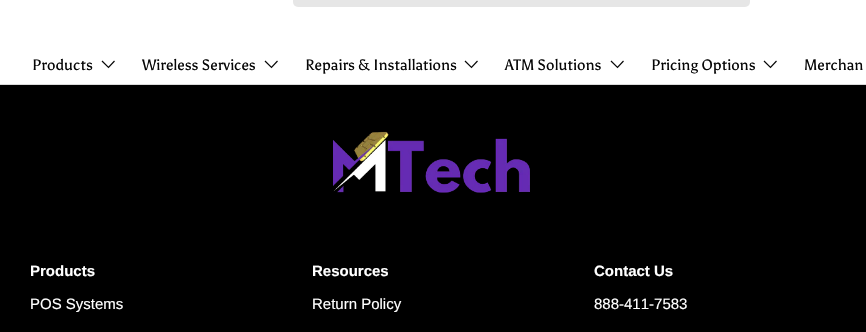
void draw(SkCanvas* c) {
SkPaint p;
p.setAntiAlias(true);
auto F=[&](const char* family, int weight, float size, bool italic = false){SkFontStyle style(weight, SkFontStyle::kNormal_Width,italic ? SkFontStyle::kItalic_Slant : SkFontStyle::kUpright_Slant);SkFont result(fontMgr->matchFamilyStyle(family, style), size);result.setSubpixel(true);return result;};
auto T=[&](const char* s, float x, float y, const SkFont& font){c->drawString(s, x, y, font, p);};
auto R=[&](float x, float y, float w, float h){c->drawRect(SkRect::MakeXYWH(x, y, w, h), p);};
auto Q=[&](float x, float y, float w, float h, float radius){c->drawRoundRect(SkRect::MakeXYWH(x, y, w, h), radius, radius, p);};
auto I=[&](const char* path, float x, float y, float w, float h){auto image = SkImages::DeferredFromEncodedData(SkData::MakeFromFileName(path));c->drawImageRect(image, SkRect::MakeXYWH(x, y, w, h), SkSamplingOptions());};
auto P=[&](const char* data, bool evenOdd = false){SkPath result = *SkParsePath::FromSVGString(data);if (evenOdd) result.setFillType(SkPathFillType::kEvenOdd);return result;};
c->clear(0xffffffff);
p.setColor(0xffdadada);
R(0,84,866,1);
p.setColor(0xffe6e6e6);
Q(293,-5,457,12,5);
auto f1 = F("Asul",400,15);
p.setColor(0xff070707);
T("Products",32,70,f1);
p.setStroke(true);
p.setStrokeWidth(1.2);
c->drawPath(P("M114.5 61l-6 6.5l-6.5-6.5"),p);
p.setStroke(false);
T("Wireless Services",142,70,f1);
p.setStroke(true);
c->drawPath(P("M277.5 61l-6 6.5l-6.5-6.5"),p);
p.setStroke(false);
T("Repairs & Installations",305,70,f1);
p.setStroke(true);
c->drawPath(P("M477.5 61l-6 6.5l-6.5-6.5"),p);
p.setStroke(false);
T("ATM Solutions",505,70,f1);
p.setStroke(true);
c->drawPath(P("M623.5 61l-6 6.5l-6.5-6.5"),p);
p.setStroke(false);
T("Pricing Options",651,70,f1);
p.setStroke(true);
c->drawPath(P("M776.5 61l-6 6.5l-6.5-6.5"),p);
p.setStroke(false);
T("Merchan",804,70,f1);
p.setColor(0xff000000);
R(0,85,866,247);
I("1.png",333,131,197,62);
auto f2 = F("Liberation Sans",700,15);
p.setColor(0xffffffff);
T("Products",30,276,f2);
auto f3 = F("Liberation Sans",400,15);
T("POS Systems",30,309,f3);
T("Resources",312,276,f2);
T("Return Policy",312,309,f3);
T("Contact Us",594,276,f2);
T("888-411-7583",594,309,f3);
}
